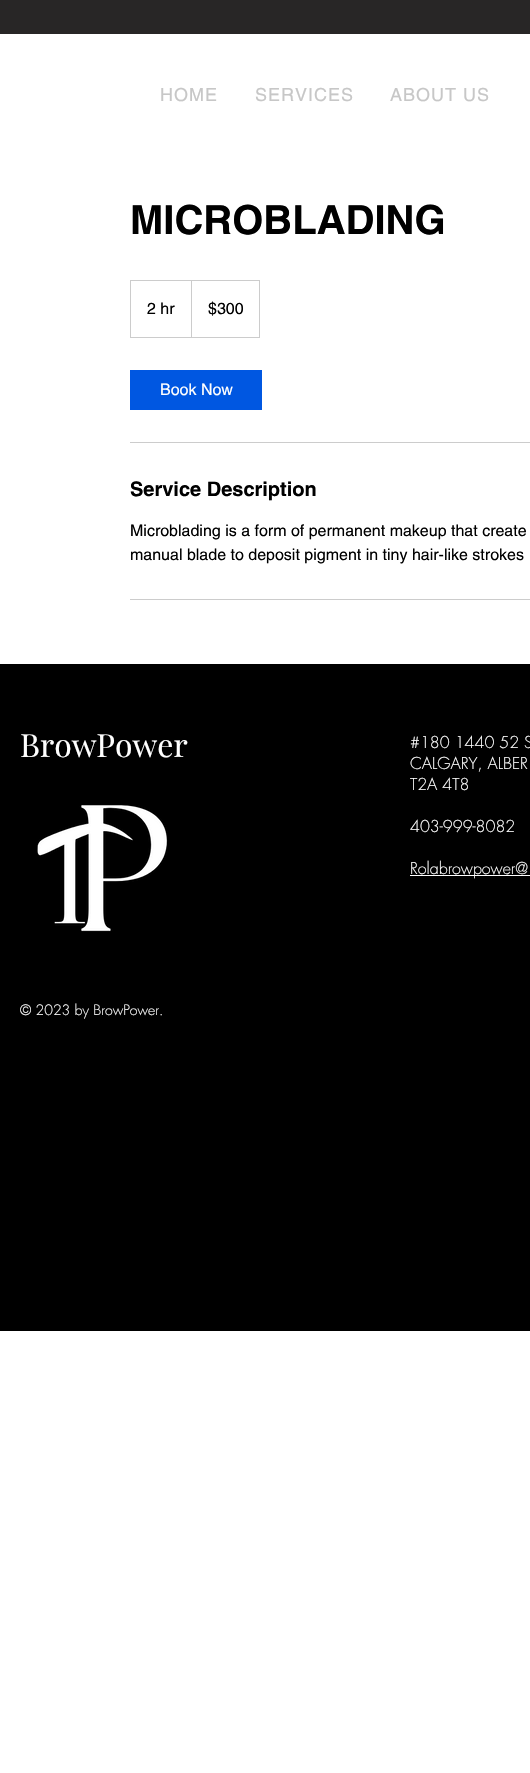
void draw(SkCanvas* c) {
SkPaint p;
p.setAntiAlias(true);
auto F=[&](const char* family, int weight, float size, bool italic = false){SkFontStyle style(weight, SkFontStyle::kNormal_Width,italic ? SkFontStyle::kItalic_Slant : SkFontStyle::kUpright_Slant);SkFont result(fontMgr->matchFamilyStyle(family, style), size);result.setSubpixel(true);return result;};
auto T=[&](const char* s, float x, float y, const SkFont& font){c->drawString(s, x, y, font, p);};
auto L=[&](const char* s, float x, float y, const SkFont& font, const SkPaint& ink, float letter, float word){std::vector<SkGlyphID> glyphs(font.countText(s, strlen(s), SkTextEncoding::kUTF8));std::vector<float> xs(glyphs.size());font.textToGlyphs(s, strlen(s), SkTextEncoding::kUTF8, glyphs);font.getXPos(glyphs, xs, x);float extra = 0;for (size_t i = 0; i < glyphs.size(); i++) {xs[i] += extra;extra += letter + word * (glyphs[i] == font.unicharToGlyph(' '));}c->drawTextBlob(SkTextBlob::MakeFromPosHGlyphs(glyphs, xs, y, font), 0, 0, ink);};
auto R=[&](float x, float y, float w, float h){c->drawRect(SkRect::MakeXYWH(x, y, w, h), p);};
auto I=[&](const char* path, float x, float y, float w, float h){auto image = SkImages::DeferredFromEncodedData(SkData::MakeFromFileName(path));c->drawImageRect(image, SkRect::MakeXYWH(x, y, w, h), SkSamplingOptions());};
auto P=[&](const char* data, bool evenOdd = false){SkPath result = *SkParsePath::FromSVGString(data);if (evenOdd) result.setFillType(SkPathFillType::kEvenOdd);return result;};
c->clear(0xffffffff);
p.setColor(0xff282626);
R(0,0,530,34);
auto f1 = F("helvetica",400,18);
p.setColor(0xffc7c7c7);
L("HOME",160,101,f1,p,1,0);
L("SERVICES",255,101,f1,p,1,0);
L("ABOUT US",390,101,f1,p,1,0);
auto f2 = F("helvetica",700,40);
p.setColor(0xff000000);
T("MICROBLADING",130,234,f2);
p.setStroke(true);
p.setStrokeWidth(1);
p.setColor(0xffcccccc);
c->drawRect(SkRect::MakeXYWH(130.5,280.5,129,57),p);
auto f3 = F("helvetica",400,16);
p.setStroke(false);
p.setColor(0xff000000);
T("2 hr",147,314,f3);
p.setColor(0xffcccccc);
c->drawPath(P("M191 337v-57l1 1v56z"),p);
p.setColor(0xff000000);
T("$300",208,314,f3);
p.setColor(0xff0057e1);
R(130,370,132,40);
p.setColor(0xffffffff);
T("Book Now",160,395,f3);
p.setColor(0xffcccccc);
R(130,442,400,1);
auto f4 = F("helvetica",700,20);
p.setColor(0xff000000);
T("Service Description",130,496,f4);
T("Microblading is a form of permanent makeup that create",130,536,f3);
T("manual blade to deposit pigment in tiny hair-like strokes",130,560,f3);
p.setColor(0xffcccccc);
R(130,599,400,1);
p.setColor(0xff000000);
R(0,664,530,667);
auto f5 = F("Playfair Display",400,32);
p.setColor(0xffffffff);
T("BrowPower",20,757,f5);
I("1.png",37,805,131,127);
auto f6 = F("futura",300,14);
T("© 2023 by BrowPower.",20,1015,f6);
auto f7 = F("futura",300,16);
T("#180 1440 52 S",410,748,f7);
T("CALGARY, ALBER",410,769,f7);
T("T2A 4T8",410,790,f7);
T("403-999-8082",410,832,f7);
R(410,875,120,1);
T("Rolabrowpower@",410,874,f7);
}
